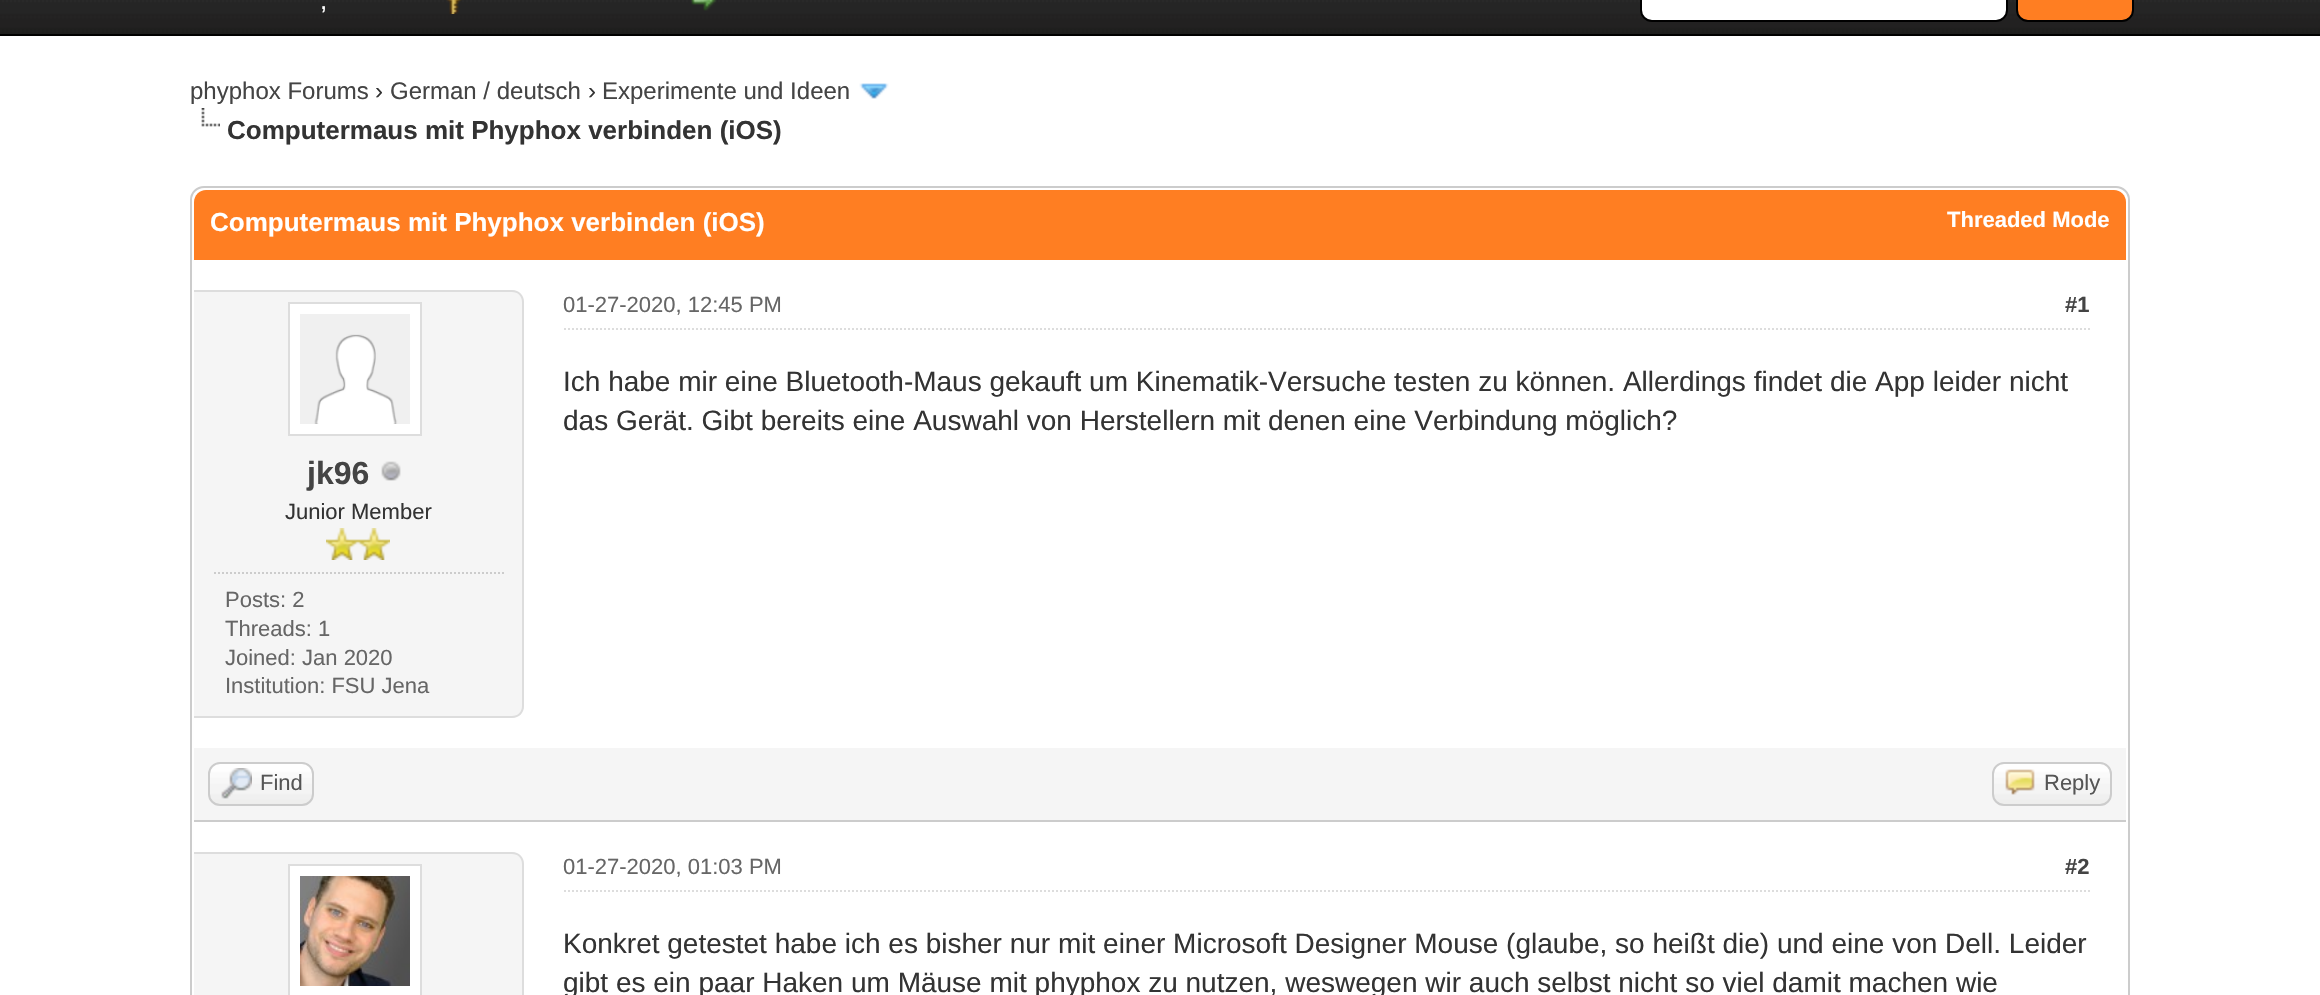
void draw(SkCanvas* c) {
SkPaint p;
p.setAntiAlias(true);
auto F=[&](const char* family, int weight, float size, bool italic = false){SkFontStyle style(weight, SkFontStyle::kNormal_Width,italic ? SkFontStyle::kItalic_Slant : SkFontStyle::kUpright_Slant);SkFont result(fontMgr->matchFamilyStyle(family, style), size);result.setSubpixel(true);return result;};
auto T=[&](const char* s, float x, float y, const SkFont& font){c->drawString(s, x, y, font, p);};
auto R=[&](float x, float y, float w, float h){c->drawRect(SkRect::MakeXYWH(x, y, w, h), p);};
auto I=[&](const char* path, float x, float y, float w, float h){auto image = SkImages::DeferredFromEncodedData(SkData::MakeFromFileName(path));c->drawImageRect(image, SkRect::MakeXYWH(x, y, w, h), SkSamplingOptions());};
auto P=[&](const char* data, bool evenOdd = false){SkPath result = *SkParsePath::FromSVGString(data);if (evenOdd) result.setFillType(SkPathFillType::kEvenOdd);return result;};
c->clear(0xffffffff);
I("1.png",0,0,2320,34);
p.setColor(0xff000000);
R(0,34,2320,2);
auto f1 = F("Liberation Sans",400,26);
p.setColor(0xffffffff);
T(",",320,9,f1);
I("2.png",446,0,16,14);
I("3.png",691,0,26,11);
c->drawRoundRect(SkRect::MakeXYWH(1641,-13,366,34),11,11,p);
p.setStroke(true);
p.setStrokeWidth(2);
p.setColor(0xff000000);
c->drawRoundRect(SkRect::MakeXYWH(1641,-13,366,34),11,11,p);
p.setStroke(false);
p.setColor(0xffff7e22);
c->drawRoundRect(SkRect::MakeXYWH(2017,-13,116,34),11,11,p);
p.setStroke(true);
p.setColor(0xff000000);
c->drawRoundRect(SkRect::MakeXYWH(2017,-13,116,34),11,11,p);
auto f2 = F("Liberation Sans",400,24);
p.setStroke(false);
p.setColor(0xff444444);
T("phyphox Forums",190,99,f2);
p.setColor(0xff333333);
T("›",375,99,f2);
p.setColor(0xff444444);
T("German / deutsch",390,99,f2);
p.setColor(0xff333333);
T("›",588,99,f2);
p.setColor(0xff444444);
T("Experimente und Ideen",602,99,f2);
I("4.png",859,83,30,16);
I("5.png",201,108,19,19);
auto f3 = F("Liberation Sans",700,26);
p.setColor(0xff333333);
T("Computermaus mit Phyphox verbinden (iOS)",227,139,f3);
p.setStroke(true);
p.setColor(0xffcccccc);
c->drawRoundRect(SkRect::MakeXYWH(191,187,1938,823),13,13,p);
p.setStroke(false);
p.setColor(0xffff7e22);
c->drawPath(P("M206 190h1908c6.5 0 12 5.5 12 12v58h-1932v-58c0-6.5 5.5-12 12-12z"),p);
p.setColor(0xffffffff);
T("Computermaus mit Phyphox verbinden (iOS)",210,231,f3);
auto f4 = F("Liberation Sans",700,22);
T("Threaded Mode",1947,227,f4);
p.setStroke(true);
p.setColor(0xffdddddd);
p.setPathEffect(SkDashPathEffect::Make({{2,2}}, 0));
c->drawPath(P("M564 329h1526"),p);
p.setPathEffect(nullptr);
auto f5 = F("Liberation Sans",400,22);
p.setStroke(false);
p.setColor(0xff666666);
T("01-27-2020, 12:45 PM",563,312,f5);
p.setColor(0xff444444);
T("#1",2065,312,f4);
auto f6 = F("Liberation Sans",400,28);
p.setColor(0xff333333);
T("Ich habe mir eine Bluetooth-Maus gekauft um Kinematik-Versuche testen zu können. Allerdings findet die App leider nicht",563,391,f6);
T("das Gerät. Gibt bereits eine Auswahl von Herstellern mit denen eine Verbindung möglich?",563,430,f6);
p.setColor(0xfff5f5f5);
c->drawPath(P("M194 290h318c6.5 0 12 5.5 12 12v404c0 6.5-5.5 12-12 12h-318z"),p);
p.setColor(0xffdddddd);
c->drawPath(P("M194 290h318c7 0 12 5 12 12v404c0 7-5 12-12 12h-318zm0 2h318c6 0 10 4 10 10v404c0 6-4 10-10 10h-318z",true),p);
p.setColor(0xffffffff);
c->drawRect(SkRect::MakeXYWH(289,303,132,132),p);
p.setStroke(true);
p.setColor(0xffdddddd);
c->drawRect(SkRect::MakeXYWH(289,303,132,132),p);
I("6.png",300,314,110,110);
auto f7 = F("Liberation Sans",700,32);
p.setStroke(false);
p.setColor(0xff444444);
T("jk96",307,484,f7);
I("7.png",381,461,20,20);
p.setColor(0xff333333);
T("Junior Member",285,519,f5);
I("8.png",326,528,32,32);
I("8.png",358,528,32,32);
p.setStroke(true);
p.setColor(0xffcccccc);
p.setPathEffect(SkDashPathEffect::Make({{2,2}}, 0));
c->drawPath(P("M214 573h290"),p);
p.setPathEffect(nullptr);
p.setStroke(false);
p.setColor(0xff666666);
T("Posts: 2",225,607,f5);
T("Threads: 1",225,636,f5);
T("Joined: Jan 2020",225,665,f5);
T("Institution: FSU Jena",225,693,f5);
p.setColor(0xfff5f5f5);
R(194,748,1932,72);
p.setColor(0xffcccccc);
R(194,820,1932,2);
I("9.png",208,764,106,41);
p.setStroke(true);
c->drawRoundRect(SkRect::MakeXYWH(209,763,104,42),11,11,p);
I("10.png",221,768,31,31);
p.setStroke(false);
p.setColor(0xff555555);
T("Find",260,790,f5);
I("11.png",1992,764,120,41);
p.setStroke(true);
p.setColor(0xffcccccc);
c->drawRoundRect(SkRect::MakeXYWH(1993,763,118,42),11,11,p);
I("12.png",2005,769,30,26);
p.setStroke(false);
p.setColor(0xff555555);
T("Reply",2044,790,f5);
p.setColor(0xfff5f5f5);
c->drawPath(P("M194 852h318c6.5 0 12 5.5 12 12v131c0 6.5-5.5 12-12 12h-318z"),p);
p.setColor(0xffdddddd);
c->drawPath(P("M194 852h318c7 0 12 5 12 12v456c0 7-5 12-12 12h-318zm0 2h318c6 0 10 4 10 10v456c0 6-4 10-10 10h-318z",true),p);
p.setColor(0xffffffff);
c->drawRect(SkRect::MakeXYWH(289,865,132,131),p);
p.setStroke(true);
p.setColor(0xffdddddd);
c->drawRect(SkRect::MakeXYWH(289,865,132,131),p);
I("13.png",300,876,110,110);
p.setPathEffect(SkDashPathEffect::Make({{2,2}}, 0));
c->drawPath(P("M564 891h1526"),p);
p.setPathEffect(nullptr);
p.setStroke(false);
p.setColor(0xff666666);
T("01-27-2020, 01:03 PM",563,874,f5);
p.setColor(0xff444444);
T("#2",2065,874,f4);
p.setColor(0xff333333);
T("Konkret getestet habe ich es bisher nur mit einer Microsoft Designer Mouse (glaube, so heißt die) und eine von Dell. Leider",563,953,f6);
T("gibt es ein paar Haken um Mäuse mit phyphox zu nutzen, weswegen wir auch selbst nicht so viel damit machen wie",563,992,f6);
}
